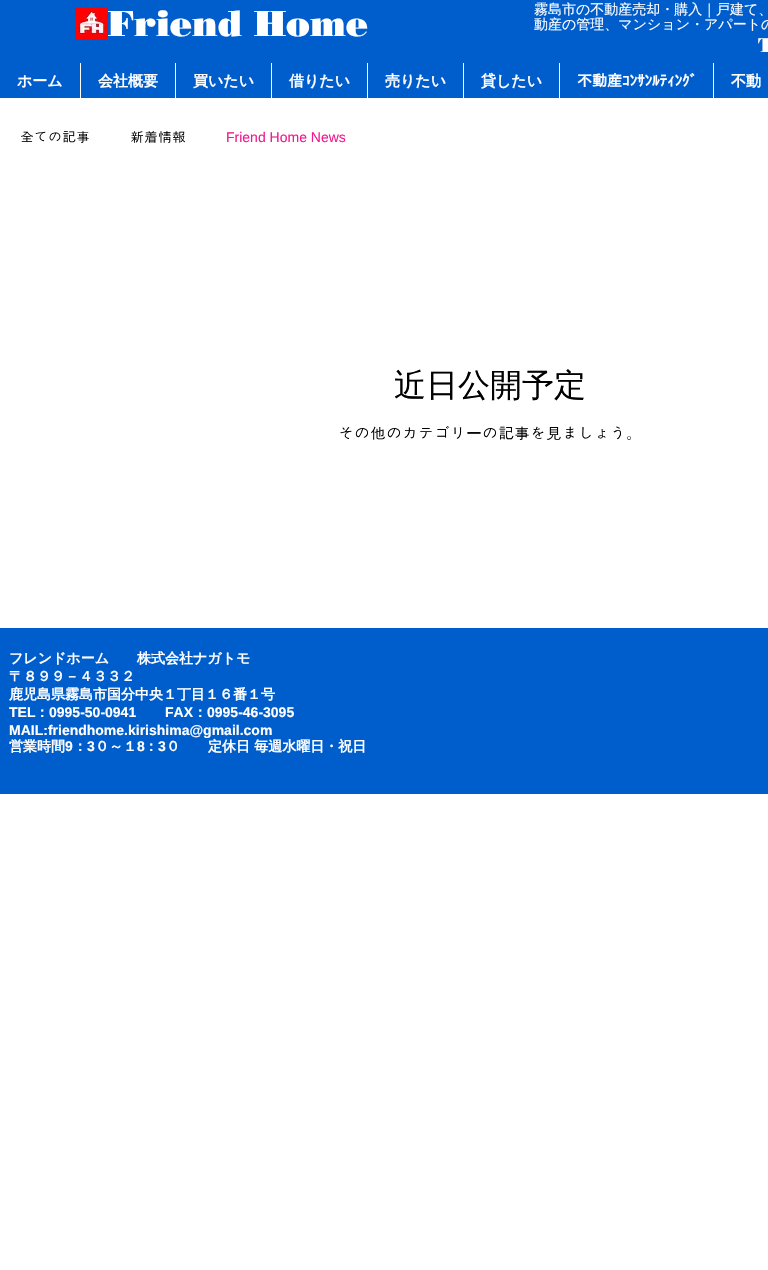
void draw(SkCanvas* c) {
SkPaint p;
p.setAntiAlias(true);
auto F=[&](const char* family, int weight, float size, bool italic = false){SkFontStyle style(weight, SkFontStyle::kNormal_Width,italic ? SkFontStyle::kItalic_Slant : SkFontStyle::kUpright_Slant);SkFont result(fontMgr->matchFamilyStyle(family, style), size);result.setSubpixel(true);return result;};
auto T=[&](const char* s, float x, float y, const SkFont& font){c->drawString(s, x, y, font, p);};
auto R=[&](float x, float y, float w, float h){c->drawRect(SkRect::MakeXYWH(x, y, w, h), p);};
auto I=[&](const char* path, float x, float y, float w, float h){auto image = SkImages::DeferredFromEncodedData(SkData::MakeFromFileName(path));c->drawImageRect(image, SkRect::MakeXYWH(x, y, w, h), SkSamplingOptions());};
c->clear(0xffffffff);
p.setColor(0xff005dcc);
R(0,0,768,98);
I("1.png",75,7,33,33);
auto f1 = F("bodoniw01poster",900,36);
p.setColor(0xffffffff);
T("Friend Home",108,36,f1);
auto f2 = F("WenQuanYi Zen Hei",500,14);
T("霧島市の不動産売却・購入｜戸建て、",534,14,f2);
T("動産の管理、マンション・アパートの",534,29,f2);
auto f3 = F("bodoniw01poster",900,20);
T("T",758,52,f3);
auto f4 = F("WenQuanYi Zen Hei",700,15);
T("ホーム",17,86,f4);
R(80,63,1,35);
T("会社概要",98,86,f4);
R(175,63,1,35);
T("買いたい",193,86,f4);
R(271,63,1,35);
T("借りたい",289,86,f4);
R(367,63,1,35);
T("売りたい",385,86,f4);
R(463,63,1,35);
T("貸したい",481,86,f4);
R(559,63,1,35);
auto f5 = F("IPAPGothic",700,15);
T("不動産ｺﾝｻﾝﾙﾃｨﾝｸﾞ",577,86,f5);
R(713,63,1,35);
T("不動",731,86,f4);
auto f6 = F("Dotum",400,14);
p.setColor(0xff000000);
T("全ての記事",20,142,f6);
T("新着情報",130,142,f6);
auto f7 = F("Liberation Sans",400,14);
p.setColor(0xfff21890);
T("Friend Home News",226,142,f7);
auto f8 = F("WenQuanYi Zen Hei",500,32);
p.setColor(0xff000000);
T("近日公開予定",394,396,f8);
auto f9 = F("Dotum",400,16);
T("その他のカテゴリ",338,439,f9);
auto f10 = F("WenQuanYi Zen Hei",500,16);
T("ー",466,439,f10);
T("の記事を見ましょう。",482,439,f9);
p.setColor(0xff005dcc);
R(0,628,768,166);
auto f11 = F("WenQuanYi Zen Hei",700,14);
p.setColor(0xffffffff);
T("フレンドホーム　　株式会社ナガトモ",9,663,f11);
T("〒８９９－４３３２",9,681,f11);
T("鹿児島県霧島市国分中央１丁目１６番１号",9,699,f11);
auto f12 = F("Liberation Sans",700,14);
T("TEL",9,717,f12);
T("：",35,717,f11);
T("0995-50-0941",49,717,f12);
T("FAX",165,717,f12);
T("：",193,717,f11);
T("0995-46-3095",207,717,f12);
T("MAIL:friendhome.kirishima@gmail.com",9,735,f12);
T("営業時間",9,751,f11);
T("9",65,751,f12);
T("：",73,751,f11);
T("3",87,751,f12);
T("０～１",95,751,f11);
T("8",137,751,f12);
T("：",144,751,f11);
T("3",158,751,f12);
T("０　　定休日 毎週水曜日・祝日",166,751,f11);
}
